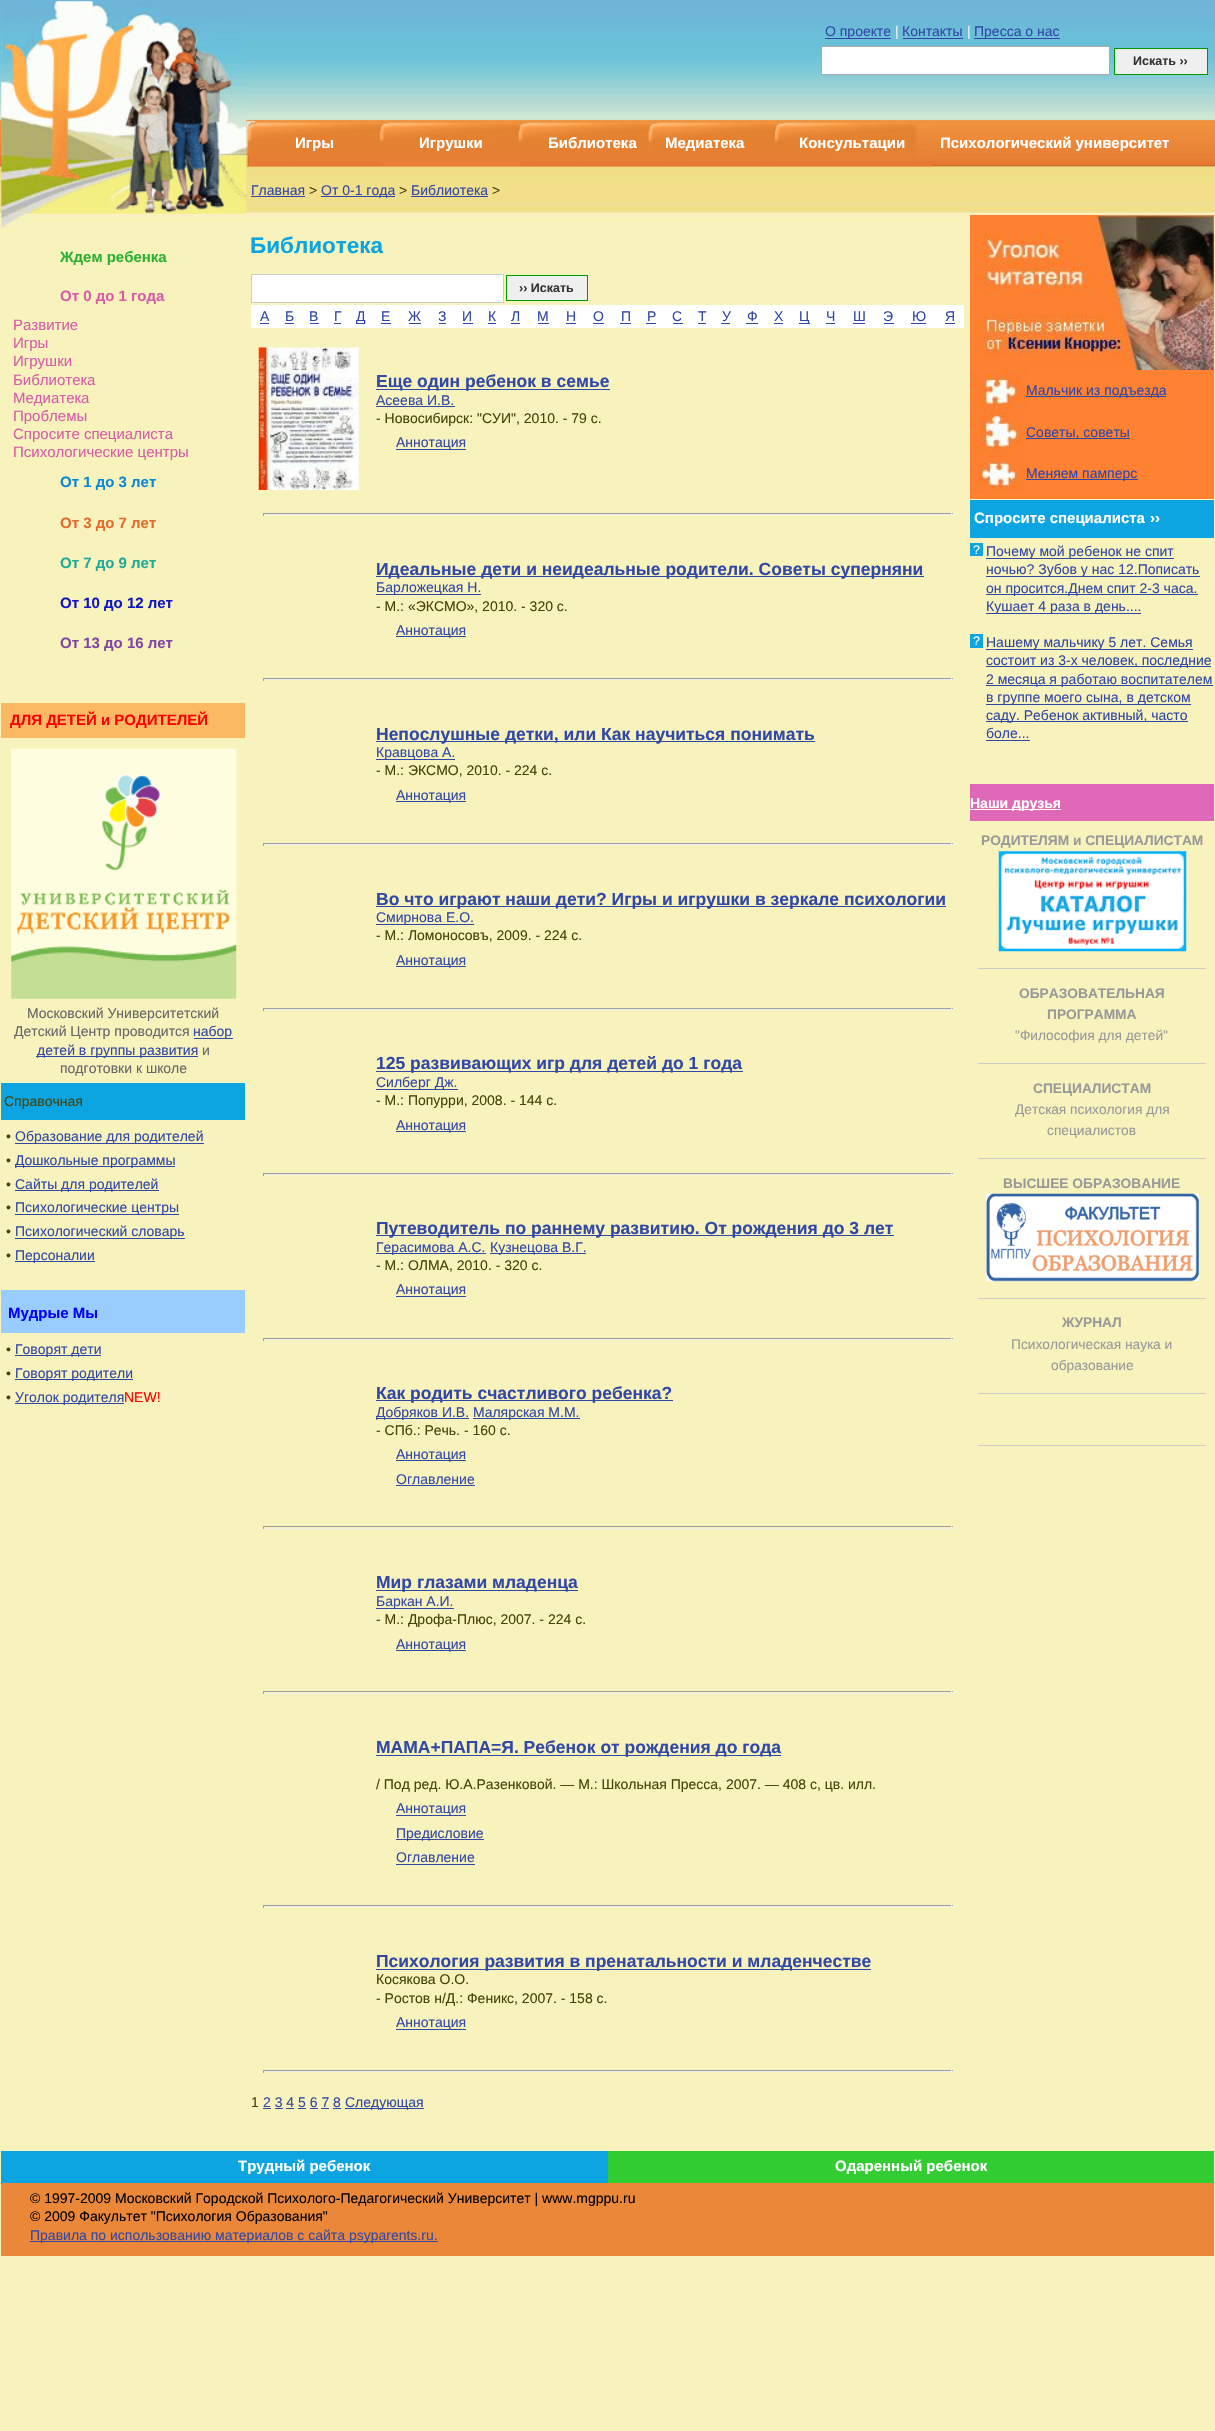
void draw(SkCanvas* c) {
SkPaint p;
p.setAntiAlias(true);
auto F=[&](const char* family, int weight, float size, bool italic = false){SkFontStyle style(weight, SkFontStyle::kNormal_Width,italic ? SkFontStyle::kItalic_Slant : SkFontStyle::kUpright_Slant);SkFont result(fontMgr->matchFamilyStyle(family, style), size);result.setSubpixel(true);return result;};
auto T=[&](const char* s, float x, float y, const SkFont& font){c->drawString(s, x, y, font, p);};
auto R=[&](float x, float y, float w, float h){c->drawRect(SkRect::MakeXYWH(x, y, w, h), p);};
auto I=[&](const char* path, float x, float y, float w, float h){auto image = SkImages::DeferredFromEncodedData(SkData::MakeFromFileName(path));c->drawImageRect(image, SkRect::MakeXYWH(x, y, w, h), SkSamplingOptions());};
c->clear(0xfff8f3bc);
I("1.png",0,0,1215,220);
I("3.png",246,121,687,46);
I("2.png",1,1,246,213);
p.setColor(0xff3248a6);
R(825,38,66,1);
auto f1 = F("Liberation Sans",400,14);
T("О проекте",825,36,f1);
p.setColor(0xfff0f0f0);
T("|",895,36,f1);
p.setColor(0xff3248a6);
T("Контакты",902,36,f1);
R(903,38,60,1);
p.setColor(0xfff0f0f0);
T("|",967,36,f1);
p.setColor(0xff3248a6);
R(974,38,86,1);
T("Пресса о нас",974,36,f1);
p.setColor(0xffffffff);
c->drawRect(SkRect::MakeXYWH(821.5,46.5,288,28),p);
p.setStroke(true);
p.setStrokeWidth(1);
p.setColor(0xffaaaaaa);
c->drawRect(SkRect::MakeXYWH(821.5,46.5,288,28),p);
p.setStroke(false);
p.setColor(0xffefefef);
c->drawRect(SkRect::MakeXYWH(1114.5,48.5,93,26),p);
p.setStroke(true);
p.setColor(0xff009900);
c->drawRect(SkRect::MakeXYWH(1114.5,48.5,93,26),p);
auto f2 = F("Liberation Sans",700,12.5);
p.setStroke(false);
p.setColor(0xff333333);
T("Искать ››",1133,65,f2);
auto f3 = F("Liberation Sans",700,15);
p.setColor(0xffffffff);
T("Игры",295,148,f3);
T("Игрушки",419,148,f3);
T("Библиотека",548,148,f3);
T("Медиатека",665,148,f3);
T("Консультации",799,148,f3);
T("Психологический университет",940,148,f3);
p.setColor(0xff3248a6);
T("Главная",251,195,f1);
R(251,196,54,1);
p.setColor(0xff454107);
T(">",309,195,f1);
p.setColor(0xff3248a6);
R(321,196,74,1);
T("От 0-1 года",321,195,f1);
p.setColor(0xff454107);
T(">",399,195,f1);
p.setColor(0xff3248a6);
T("Библиотека",411,195,f1);
R(411,196,77,1);
p.setColor(0xff454107);
T(">",492,195,f1);
I("4.png",1,213,24,16);
p.setColor(0xff2cb233);
T("Ждем ребенка",60,262,f3);
p.setColor(0xffd85ca8);
T("От 0 до 1 года",60,301,f3);
auto f4 = F("Liberation Sans",400,15);
T("Развитие",13,330,f4);
T("Игры",13,348,f4);
T("Игрушки",13,366,f4);
T("Библиотека",13,385,f4);
T("Медиатека",13,403,f4);
T("Проблемы",13,421,f4);
T("Спросите специалиста",13,439,f4);
T("Психологические центры",13,457,f4);
p.setColor(0xff0a88d5);
T("От 1 до 3 лет",60,487,f3);
p.setColor(0xffe36b2d);
T("От 3 до 7 лет",60,528,f3);
p.setColor(0xff1fab96);
T("От 7 до 9 лет",60,568,f3);
p.setColor(0xff1017c2);
T("От 10 до 12 лет",60,608,f3);
p.setColor(0xff8047a2);
T("От 13 до 16 лет",60,648,f3);
p.setColor(0xfffcb964);
R(1,703,244,35);
p.setColor(0xffff0000);
T("ДЛЯ ДЕТЕЙ и РОДИТЕЛЕЙ",10,725,f3);
I("5.png",11,748,226,251);
p.setColor(0xff666666);
T("Московский Университетский",27,1018,f1);
T("Детский Центр проводится",14,1036,f1);
p.setColor(0xff3248a6);
R(194,1038,39,1);
T("набор",193,1036,f1);
R(36,1056,162,1);
T("детей в группы развития",37,1055,f1);
p.setColor(0xff666666);
T("и",202,1055,f1);
T("подготовки к школе",60,1073,f1);
p.setColor(0xff0ca4e1);
R(1,1083,244,37);
p.setColor(0xff454107);
T("Справочная",4,1106,f1);
T("•",6,1141,f1);
p.setColor(0xff3248a6);
R(15,1143,189,1);
T("Образование для родителей",15,1141,f1);
p.setColor(0xff454107);
T("•",6,1165,f1);
p.setColor(0xff3248a6);
R(15,1166,160,1);
T("Дошкольные программы",15,1165,f1);
p.setColor(0xff454107);
T("•",6,1189,f1);
p.setColor(0xff3248a6);
R(15,1190,144,1);
T("Сайты для родителей",15,1189,f1);
p.setColor(0xff454107);
T("•",6,1212,f1);
p.setColor(0xff3248a6);
R(15,1214,164,1);
T("Психологические центры",15,1212,f1);
p.setColor(0xff454107);
T("•",6,1236,f1);
p.setColor(0xff3248a6);
R(15,1238,170,1);
T("Психологический словарь",15,1236,f1);
p.setColor(0xff454107);
T("•",6,1260,f1);
p.setColor(0xff3248a6);
R(15,1261,80,1);
T("Персоналии",15,1260,f1);
p.setColor(0xff99ccff);
R(1,1290,244,43);
p.setColor(0xff0000ff);
T("Мудрые Мы",8,1318,f3);
p.setColor(0xff454107);
T("•",6,1354,f1);
p.setColor(0xff3248a6);
R(15,1355,86,1);
T("Говорят дети",15,1354,f1);
p.setColor(0xff454107);
T("•",6,1378,f1);
p.setColor(0xff3248a6);
R(15,1379,118,1);
T("Говорят родители",15,1378,f1);
p.setColor(0xff454107);
T("•",6,1402,f1);
p.setColor(0xff3248a6);
R(15,1403,109,1);
T("Уголок родителя",15,1402,f1);
p.setColor(0xffff0000);
T("NEW!",124,1402,f1);
auto f5 = F("Liberation Sans",700,22.5);
p.setColor(0xff0ca4e1);
T("Библиотека",250,253,f5);
p.setColor(0xffffffff);
c->drawRect(SkRect::MakeXYWH(251.5,274.5,252,28),p);
p.setStroke(true);
p.setColor(0xffcccccc);
c->drawRect(SkRect::MakeXYWH(251.5,274.5,252,28),p);
p.setStroke(false);
p.setColor(0xffefefef);
c->drawRect(SkRect::MakeXYWH(506.5,275.5,81,25),p);
p.setStroke(true);
p.setColor(0xff009900);
c->drawRect(SkRect::MakeXYWH(506.5,275.5,81,25),p);
p.setStroke(false);
p.setColor(0xff333333);
T("›› Искать",519,292,f2);
p.setColor(0xffffffff);
R(251,305,713,23);
p.setColor(0xff3248a6);
T("А",260,321,f1);
R(260,323,9,1);
T("Б",285,321,f1);
R(285,323,9,1);
T("В",309,321,f1);
R(310,323,9,1);
T("Г",334,321,f1);
R(334,323,7,1);
R(356,323,9,1);
T("Д",356,321,f1);
T("Е",381,321,f1);
R(381,323,10,1);
T("Ж",408,321,f1);
R(409,323,12,1);
T("З",438,321,f1);
R(439,323,7,1);
T("И",462,321,f1);
R(463,323,10,1);
T("К",488,321,f1);
R(488,323,8,1);
T("Л",511,321,f1);
R(511,323,9,1);
T("М",537,321,f1);
R(538,323,11,1);
T("Н",566,321,f1);
R(566,323,10,1);
T("О",593,321,f1);
R(593,323,11,1);
T("П",621,321,f1);
R(620,323,11,1);
T("Р",647,321,f1);
R(646,323,10,1);
T("С",672,321,f1);
R(673,323,10,1);
T("Т",698,321,f1);
R(698,323,8,1);
T("У",722,321,f1);
R(721,323,9,1);
T("Ф",747,321,f1);
R(746,323,12,1);
T("Х",774,321,f1);
R(774,323,9,1);
R(799,323,11,1);
T("Ц",799,321,f1);
T("Ч",826,321,f1);
R(826,323,9,1);
T("Ш",853,321,f1);
R(853,323,12,1);
T("Э",883,321,f1);
R(884,323,10,1);
T("Ю",912,321,f1);
R(911,323,15,1);
T("Я",945,321,f1);
R(945,323,10,1);
I("6.png",258,347,101,143);
R(376,389,234,1);
auto f6 = F("Liberation Sans",700,17.5);
T("Еще один ребенок в семье",376,387,f6);
T("Асеева И.В.",376,405,f1);
R(376,406,79,1);
p.setColor(0xff454107);
T("- Новосибирск: \"СУИ\", 2010. - 79 c.",376,423,f1);
p.setColor(0xff3248a6);
R(396,449,70,1);
T("Аннотация",396,447,f1);
p.setColor(0xff9f9f9f);
R(263,513,690,1);
p.setColor(0xffeeeeee);
R(951,513,1,3);
R(263,514,690,1);
p.setColor(0xff9f9f9f);
R(263,513,1,3);
p.setColor(0xff3248a6);
R(376,576,548,1);
T("Идеальные дети и неидеальные родители. Советы суперняни",376,575,f6);
R(376,594,105,1);
T("Барложецкая Н.",376,592,f1);
p.setColor(0xff454107);
T("- М.: «ЭКСМО», 2010. - 320 с.",376,611,f1);
p.setColor(0xff3248a6);
R(396,636,70,1);
T("Аннотация",396,635,f1);
p.setColor(0xff9f9f9f);
R(263,678,690,1);
p.setColor(0xffeeeeee);
R(951,678,1,3);
R(263,679,690,1);
p.setColor(0xff9f9f9f);
R(263,678,1,3);
p.setColor(0xff3248a6);
R(376,741,439,1);
T("Непослушные детки, или Как научиться понимать",376,740,f6);
R(376,759,79,1);
T("Кравцова А.",376,757,f1);
p.setColor(0xff454107);
T("- М.: ЭКСМО, 2010. - 224 с.",376,775,f1);
p.setColor(0xff3248a6);
R(396,801,70,1);
T("Аннотация",396,800,f1);
p.setColor(0xff9f9f9f);
R(263,843,690,1);
p.setColor(0xffeeeeee);
R(951,843,1,3);
R(263,844,690,1);
p.setColor(0xff9f9f9f);
R(263,843,1,3);
p.setColor(0xff3248a6);
R(376,906,570,1);
T("Во что играют наши дети? Игры и игрушки в зеркале психологии",376,905,f6);
R(376,924,98,1);
T("Смирнова Е.О.",376,922,f1);
p.setColor(0xff454107);
T("- М.: Ломоносовъ, 2009. - 224 с.",376,940,f1);
p.setColor(0xff3248a6);
R(396,966,70,1);
T("Аннотация",396,965,f1);
p.setColor(0xff9f9f9f);
R(263,1008,690,1);
p.setColor(0xffeeeeee);
R(951,1008,1,3);
R(263,1009,690,1);
p.setColor(0xff9f9f9f);
R(263,1008,1,3);
p.setColor(0xff3248a6);
R(376,1071,367,1);
T("125 развивающих игр для детей до 1 года",376,1069,f6);
R(376,1089,82,1);
T("Силберг Дж.",376,1087,f1);
p.setColor(0xff454107);
T("- М.: Попурри, 2008. - 144 с.",376,1105,f1);
p.setColor(0xff3248a6);
R(396,1131,70,1);
T("Аннотация",396,1130,f1);
p.setColor(0xff9f9f9f);
R(263,1173,690,1);
p.setColor(0xffeeeeee);
R(951,1173,1,3);
R(263,1174,690,1);
p.setColor(0xff9f9f9f);
R(263,1173,1,3);
p.setColor(0xff3248a6);
R(376,1235,518,1);
T("Путеводитель по раннему развитию. От рождения до 3 лет",376,1234,f6);
R(376,1253,110,1);
T("Герасимова А.С.",376,1252,f1);
R(490,1253,96,1);
T("Кузнецова В.Г.",490,1252,f1);
p.setColor(0xff454107);
T("- М.: ОЛМА, 2010. - 320 с.",376,1270,f1);
p.setColor(0xff3248a6);
R(396,1296,70,1);
T("Аннотация",396,1294,f1);
p.setColor(0xff9f9f9f);
R(263,1338,690,1);
p.setColor(0xffeeeeee);
R(951,1338,1,3);
R(263,1339,690,1);
p.setColor(0xff9f9f9f);
R(263,1338,1,3);
p.setColor(0xff3248a6);
R(376,1400,297,1);
T("Как родить счастливого ребенка?",376,1399,f6);
R(376,1418,93,1);
T("Добряков И.В.",376,1417,f1);
R(473,1418,107,1);
T("Малярская М.М.",473,1417,f1);
p.setColor(0xff454107);
T("- СПб.: Речь. - 160 с.",376,1435,f1);
p.setColor(0xff3248a6);
R(396,1460,70,1);
T("Аннотация",396,1459,f1);
T("Оглавление",396,1484,f1);
R(396,1485,79,1);
p.setColor(0xff9f9f9f);
R(263,1526,690,1);
p.setColor(0xffeeeeee);
R(951,1526,1,3);
R(263,1528,690,1);
p.setColor(0xff9f9f9f);
R(263,1526,1,3);
p.setColor(0xff3248a6);
R(376,1590,202,1);
T("Мир глазами младенца",376,1588,f6);
R(376,1608,78,1);
T("Баркан А.И.",376,1606,f1);
p.setColor(0xff454107);
T("- М.: Дрофа-Плюс, 2007. - 224 с.",376,1624,f1);
p.setColor(0xff3248a6);
R(396,1650,70,1);
T("Аннотация",396,1649,f1);
p.setColor(0xff9f9f9f);
R(263,1691,690,1);
p.setColor(0xffeeeeee);
R(951,1691,1,3);
R(263,1693,690,1);
p.setColor(0xff9f9f9f);
R(263,1691,1,3);
p.setColor(0xff3248a6);
R(376,1755,405,1);
T("МАМА+ПАПА=Я. Ребенок от рождения до года",376,1753,f6);
p.setColor(0xff454107);
T("/ Под ред. Ю.А.Разенковой. — М.: Школьная Пресса, 2007. — 408 с, цв. илл.",376,1789,f1);
p.setColor(0xff3248a6);
R(396,1815,70,1);
T("Аннотация",396,1813,f1);
R(396,1839,88,1);
T("Предисловие",396,1838,f1);
T("Оглавление",396,1862,f1);
R(396,1864,79,1);
p.setColor(0xff9f9f9f);
R(263,1905,690,1);
p.setColor(0xffeeeeee);
R(951,1905,1,3);
R(263,1906,690,1);
p.setColor(0xff9f9f9f);
R(263,1905,1,3);
p.setColor(0xff3248a6);
R(376,1969,495,1);
T("Психология развития в пренатальности и младенчестве",376,1967,f6);
p.setColor(0xff454107);
T("Косякова О.О.",376,1984,f1);
T("- Ростов н/Д.: Феникс, 2007. - 158 с.",376,2003,f1);
p.setColor(0xff3248a6);
R(396,2029,70,1);
T("Аннотация",396,2027,f1);
p.setColor(0xff9f9f9f);
R(263,2070,690,1);
p.setColor(0xffeeeeee);
R(951,2070,1,3);
R(263,2071,690,1);
p.setColor(0xff9f9f9f);
R(263,2070,1,3);
p.setColor(0xff454107);
T("1",251,2107,f1);
p.setColor(0xff3248a6);
T("2 3 4 5 6 7 8",263,2107,f1);
R(263,2108,8,1);
R(345,2108,79,1);
T("Cледующая",345,2107,f1);
R(275,2108,8,1);
R(286,2108,8,1);
R(298,2108,8,1);
R(310,2108,8,1);
R(321,2108,8,1);
R(333,2108,8,1);
p.setColor(0xffff8132);
R(970,215,244,284);
I("7.png",973,215,241,155);
I("8.png",970,370,56,41);
p.setColor(0xff3248a6);
R(1026,396,140,1);
T("Мальчик из подъезда",1026,395,f1);
I("9.png",970,411,56,41);
R(1026,438,104,1);
T("Советы, советы",1026,437,f1);
I("10.png",970,452,56,42);
R(1026,479,112,1);
T("Меняем памперс",1026,478,f1);
p.setColor(0xff0ca4e1);
R(970,500,244,38);
p.setColor(0xffffffff);
T("Спросите специалиста",974,523,f3);
T("››",1150,523,f3);
p.setColor(0xff0ca4e1);
R(970,543,13,13);
auto f7 = F("Liberation Sans",400,12.5);
p.setColor(0xffffffff);
T("?",973,554,f7);
p.setColor(0xff3248a6);
R(986,558,188,1);
T("Почему мой ребенок не спит",986,556,f1);
R(986,576,214,1);
T("ночью? Зубов у нас 12.Пописать",986,574,f1);
R(986,594,212,1);
T("он просится.Днем спит 2-3 часа.",986,593,f1);
R(986,613,155,1);
T("Кушает 4 раза в день....",986,611,f1);
p.setColor(0xff0ca4e1);
R(970,634,13,14);
p.setColor(0xffffffff);
T("?",973,645,f7);
p.setColor(0xff3248a6);
R(986,649,207,1);
T("Нашему мальчику 5 лет. Семья",986,647,f1);
R(986,666,225,1);
T("состоит из 3-х человек, последние",986,665,f1);
R(986,685,227,1);
T("2 месяца я работаю воспитателем",986,684,f1);
R(986,704,205,1);
T("в группе моего сына, в детском",986,702,f1);
R(986,721,202,1);
T("саду. Ребенок активный, часто",986,720,f1);
T("боле...",986,738,f1);
R(986,740,44,1);
p.setColor(0xffdf69b8);
R(970,784,244,37);
p.setColor(0xffffffff);
R(970,809,91,1);
auto f8 = F("Liberation Sans",700,14);
T("Наши друзья",970,808,f8);
p.setColor(0xffcccccc);
R(978,968,228,1);
auto f9 = F("Liberation Sans",700,13.75);
p.setColor(0xff999999);
T("РОДИТЕЛЯМ и СПЕЦИАЛИСТАМ",981,845,f9);
I("11.png",998,851,189,101);
p.setColor(0xffcccccc);
R(978,1063,228,1);
p.setColor(0xff999999);
T("ОБРАЗОВАТЕЛЬНАЯ",1019,998,f9);
T("ПРОГРАММА",1047,1019,f9);
auto f10 = F("Liberation Sans",400,13.75);
T("\"Философия для детей\"",1015,1040,f10);
p.setColor(0xffcccccc);
R(978,1158,228,1);
p.setColor(0xff999999);
T("СПЕЦИАЛИСТАМ",1033,1093,f9);
T("Детская психология для",1015,1114,f10);
T("специалистов",1047,1135,f10);
p.setColor(0xffcccccc);
R(978,1298,228,1);
p.setColor(0xff999999);
T("ВЫСШЕЕ ОБРАЗОВАНИЕ",1003,1188,f9);
I("12.png",986,1193,213,89);
p.setColor(0xffcccccc);
R(978,1393,228,1);
p.setColor(0xff999999);
T("ЖУРНАЛ",1062,1327,f9);
T("Психологическая наука и",1011,1349,f10);
T("образование",1051,1370,f10);
p.setColor(0xffcccccc);
R(978,1445,228,1);
p.setColor(0xff0ca4e1);
R(1,2151,607,32);
p.setColor(0xffffffff);
T("Трудный ребенок",238,2171,f3);
p.setColor(0xff33cc33);
R(608,2151,606,32);
p.setColor(0xffffffff);
T("Одаренный ребенок",835,2171,f3);
p.setColor(0xffeb8738);
R(1,2183,1213,73);
p.setColor(0xff000000);
T("© 1997-2009 Московский Городской Психолого-Педагогический Университет | www.mgppu.ru",30,2203,f1);
T("© 2009 Факультет \"Психология Образования\"",30,2221,f1);
p.setColor(0xff3248a6);
R(30,2241,408,1);
T("Правила по использованию материалов с сайта psyparents.ru.",30,2240,f1);
}
